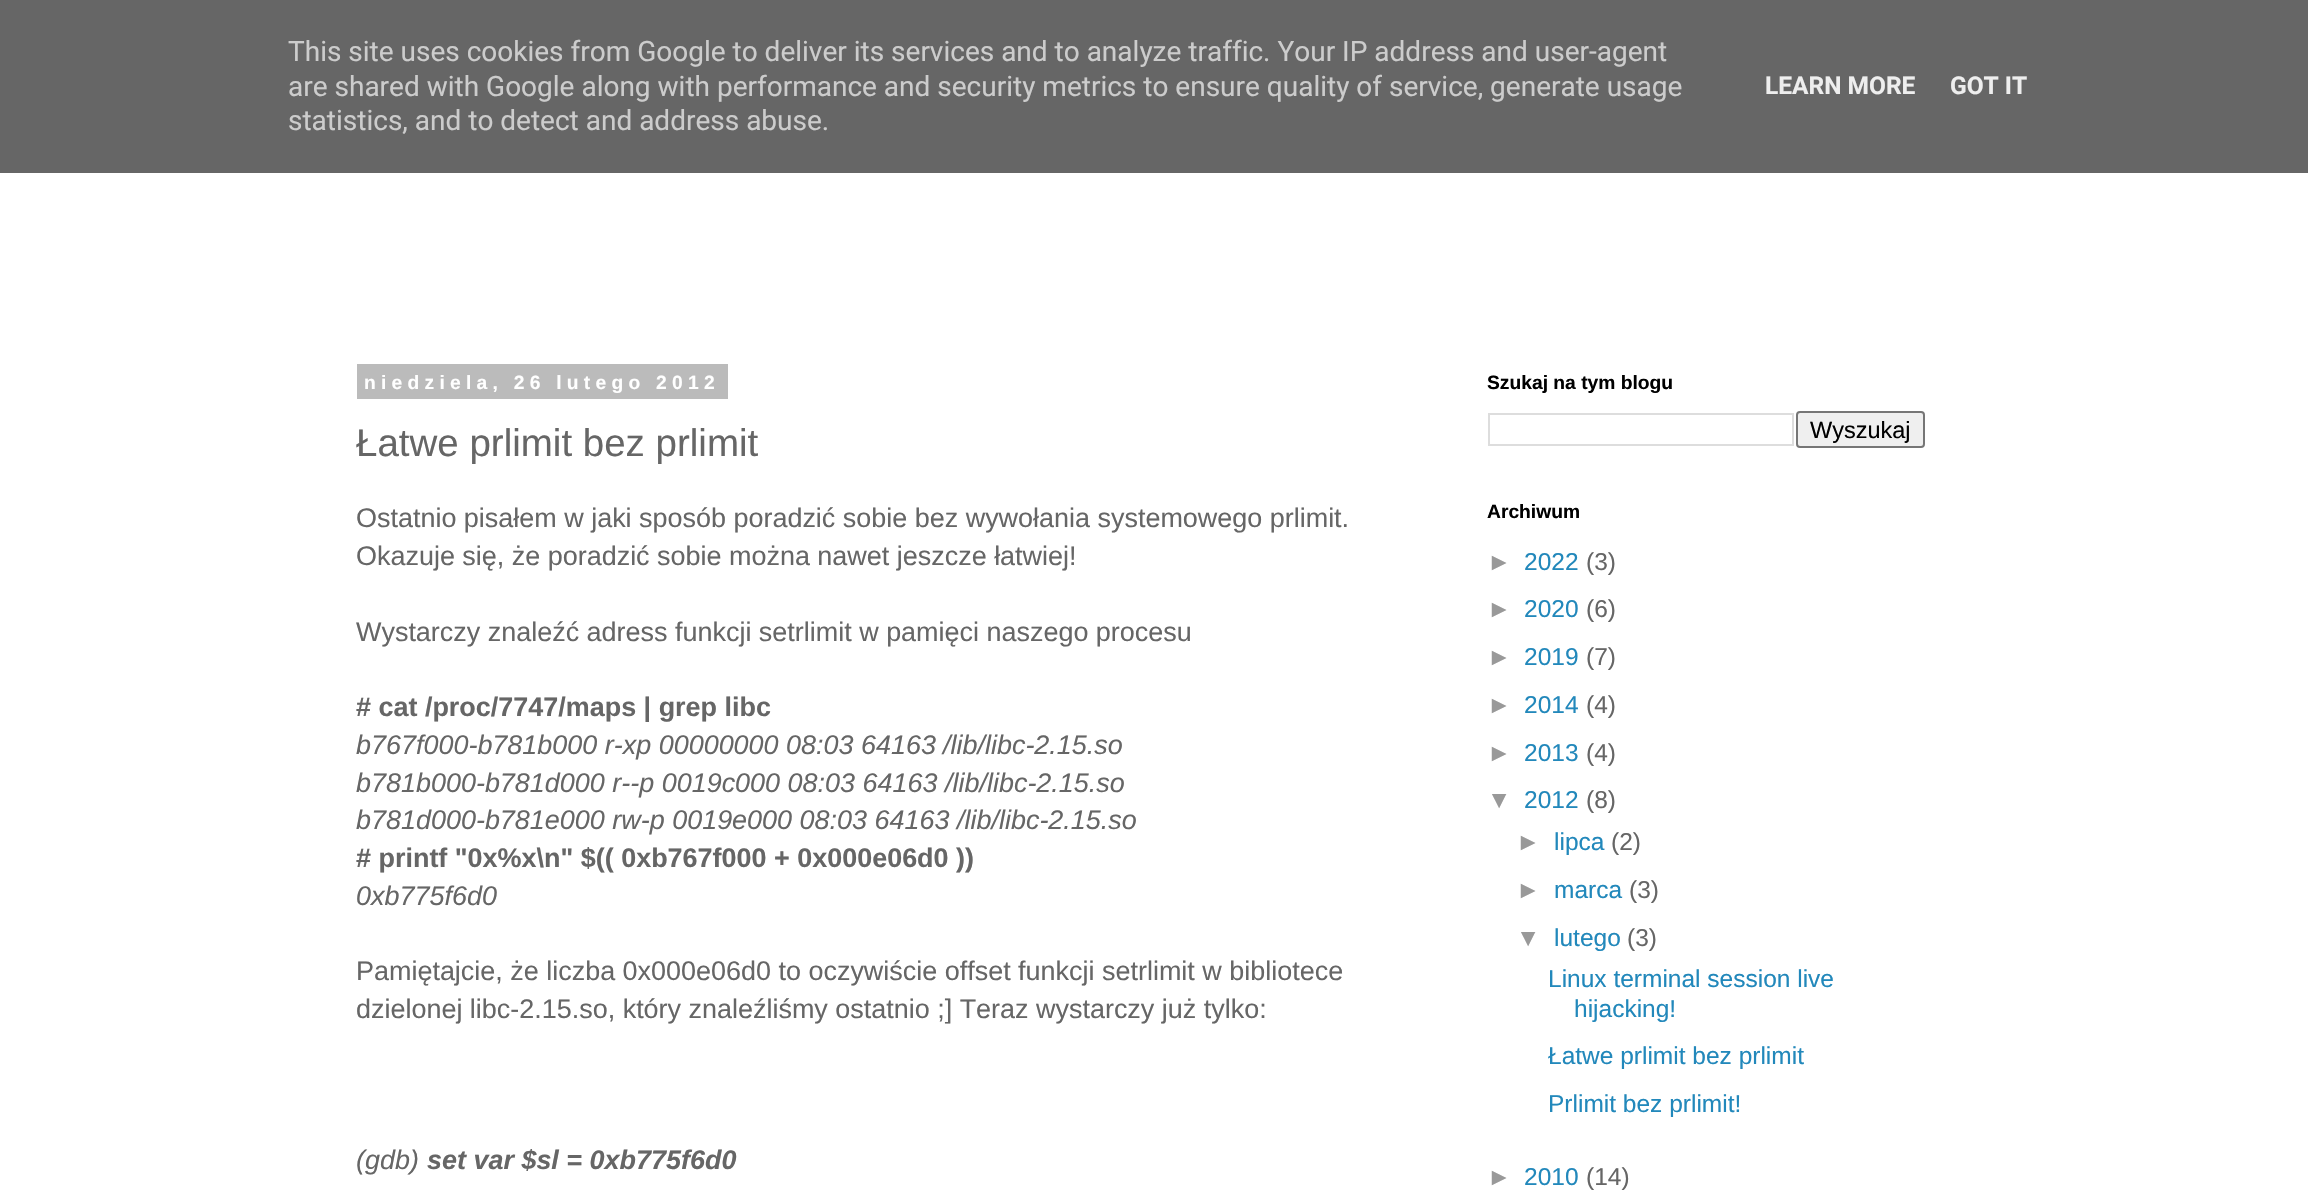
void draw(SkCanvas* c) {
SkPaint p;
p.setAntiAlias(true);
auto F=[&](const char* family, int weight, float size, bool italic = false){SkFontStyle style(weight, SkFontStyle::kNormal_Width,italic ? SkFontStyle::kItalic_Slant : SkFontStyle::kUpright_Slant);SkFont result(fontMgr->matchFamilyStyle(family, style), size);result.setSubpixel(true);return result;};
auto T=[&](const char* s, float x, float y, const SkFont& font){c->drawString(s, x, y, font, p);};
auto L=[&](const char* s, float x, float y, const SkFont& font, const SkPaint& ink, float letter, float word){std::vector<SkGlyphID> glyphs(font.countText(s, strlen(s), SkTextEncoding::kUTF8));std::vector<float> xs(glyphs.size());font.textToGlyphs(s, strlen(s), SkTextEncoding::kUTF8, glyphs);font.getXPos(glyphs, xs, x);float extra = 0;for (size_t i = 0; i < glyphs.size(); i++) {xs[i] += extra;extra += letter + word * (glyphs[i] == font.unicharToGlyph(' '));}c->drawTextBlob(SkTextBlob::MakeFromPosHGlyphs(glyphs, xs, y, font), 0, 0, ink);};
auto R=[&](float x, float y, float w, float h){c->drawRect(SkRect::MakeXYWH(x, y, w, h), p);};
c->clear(0xffffffff);
p.setColor(0xff666666);
R(0,0,2308,173);
auto f1 = F("Roboto",400,28);
p.setColor(0xffcccccc);
T("This site uses cookies from Google to deliver its services and to analyze traffic. Your IP address and user-agent",288,61,f1);
T("are shared with Google along with performance and security metrics to ensure quality of service, generate usage",288,96,f1);
T("statistics, and to detect and address abuse.",288,130,f1);
auto f2 = F("Roboto",700,24.5);
p.setColor(0xffeeeeee);
T("LEARN MORE",1765,94,f2);
T("GOT IT",1950,94,f2);
p.setColor(0xffbbbbbb);
R(357,364,371,35);
auto f3 = F("Liberation Sans",700,19.25);
p.setColor(0xffffffff);
L("niedziela, 26 lutego 2012",364,389,f3,p,5.25,0);
auto f4 = F("Liberation Sans",400,38.5);
p.setColor(0xff666666);
T("Łatwe prlimit bez prlimit",356,456,f4);
auto f5 = F("Liberation Sans",400,26.95);
T("Ostatnio pisałem w jaki sposób poradzić sobie bez wywołania systemowego prlimit.",356,527,f5);
T("Okazuje się, że poradzić sobie można nawet jeszcze łatwiej!",356,565,f5);
T("Wystarczy znaleźć adress funkcji setrlimit w pamięci naszego procesu",356,641,f5);
auto f6 = F("Liberation Sans",700,26.95);
T("# cat /proc/7747/maps | grep libc",356,716,f6);
auto f7 = F("Liberation Sans",400,26.95,true);
T("b767f000-b781b000 r-xp 00000000 08:03 64163",356,754,f7);
T("/lib/libc-2.15.so",943,754,f7);
T("b781b000-b781d000 r--p 0019c000 08:03 64163",356,792,f7);
T("/lib/libc-2.15.so",945,792,f7);
T("b781d000-b781e000 rw-p 0019e000 08:03 64163",356,829,f7);
T("/lib/libc-2.15.so",957,829,f7);
T("# printf \"0x%x\\n\" $(( 0xb767f000 + 0x000e06d0 ))",356,867,f6);
T("0xb775f6d0",356,905,f7);
T("Pamiętajcie, że liczba 0x000e06d0 to oczywiście offset funkcji setrlimit w bibliotece",356,980,f5);
T("dzielonej libc-2.15.so, który znaleźliśmy ostatnio ;] Teraz wystarczy już tylko:",356,1018,f5);
T("(gdb)",356,1169,f7);
auto f8 = F("Liberation Sans",700,26.95,true);
T("set var $sl = 0xb775f6d0",427,1169,f8);
p.setColor(0xff000000);
T("Szukaj na tym blogu",1487,389,f3);
p.setStroke(true);
p.setStrokeWidth(2);
p.setColor(0xffdddddd);
c->drawRect(SkRect::MakeXYWH(1489,414,304,31),p);
p.setStroke(false);
p.setColor(0xffefefef);
c->drawRoundRect(SkRect::MakeXYWH(1797,412,127,35),3,3,p);
p.setStroke(true);
p.setColor(0xff767676);
c->drawRoundRect(SkRect::MakeXYWH(1797,412,127,35),3,3,p);
auto f9 = F("Liberation Sans",400,23.5);
p.setStroke(false);
p.setColor(0xff000000);
T("Wyszukaj",1810,438,f9);
T("Archiwum",1487,518,f3);
auto f10 = F("Liberation Sans",400,24.5);
p.setColor(0xff999999);
T("►",1487,570,f10);
p.setColor(0xff2288bb);
T("2022",1524,570,f10);
p.setColor(0xff666666);
T("(3)",1586,570,f10);
p.setColor(0xff999999);
T("►",1487,617,f10);
p.setColor(0xff2288bb);
T("2020",1524,617,f10);
p.setColor(0xff666666);
T("(6)",1586,617,f10);
p.setColor(0xff999999);
T("►",1487,665,f10);
p.setColor(0xff2288bb);
T("2019",1524,665,f10);
p.setColor(0xff666666);
T("(7)",1586,665,f10);
p.setColor(0xff999999);
T("►",1487,713,f10);
p.setColor(0xff2288bb);
T("2014",1524,713,f10);
p.setColor(0xff666666);
T("(4)",1586,713,f10);
p.setColor(0xff999999);
T("►",1487,761,f10);
p.setColor(0xff2288bb);
T("2013",1524,761,f10);
p.setColor(0xff666666);
T("(4)",1586,761,f10);
p.setColor(0xff999999);
T("▼",1487,808,f10);
p.setColor(0xff2288bb);
T("2012",1524,808,f10);
p.setColor(0xff666666);
T("(8)",1586,808,f10);
p.setColor(0xff999999);
T("►",1516,850,f10);
p.setColor(0xff2288bb);
T("lipca",1554,850,f10);
p.setColor(0xff666666);
T("(2)",1611,850,f10);
p.setColor(0xff999999);
T("►",1516,898,f10);
p.setColor(0xff2288bb);
T("marca",1554,898,f10);
p.setColor(0xff666666);
T("(3)",1629,898,f10);
p.setColor(0xff999999);
T("▼",1516,946,f10);
p.setColor(0xff2288bb);
T("lutego",1554,946,f10);
p.setColor(0xff666666);
T("(3)",1627,946,f10);
p.setColor(0xff2288bb);
T("Linux terminal session live",1548,987,f10);
T("hijacking!",1574,1017,f10);
T("Łatwe prlimit bez prlimit",1548,1064,f10);
T("Prlimit bez prlimit!",1548,1112,f10);
p.setColor(0xff999999);
T("►",1487,1185,f10);
p.setColor(0xff2288bb);
T("2010",1524,1185,f10);
p.setColor(0xff666666);
T("(14)",1586,1185,f10);
}
